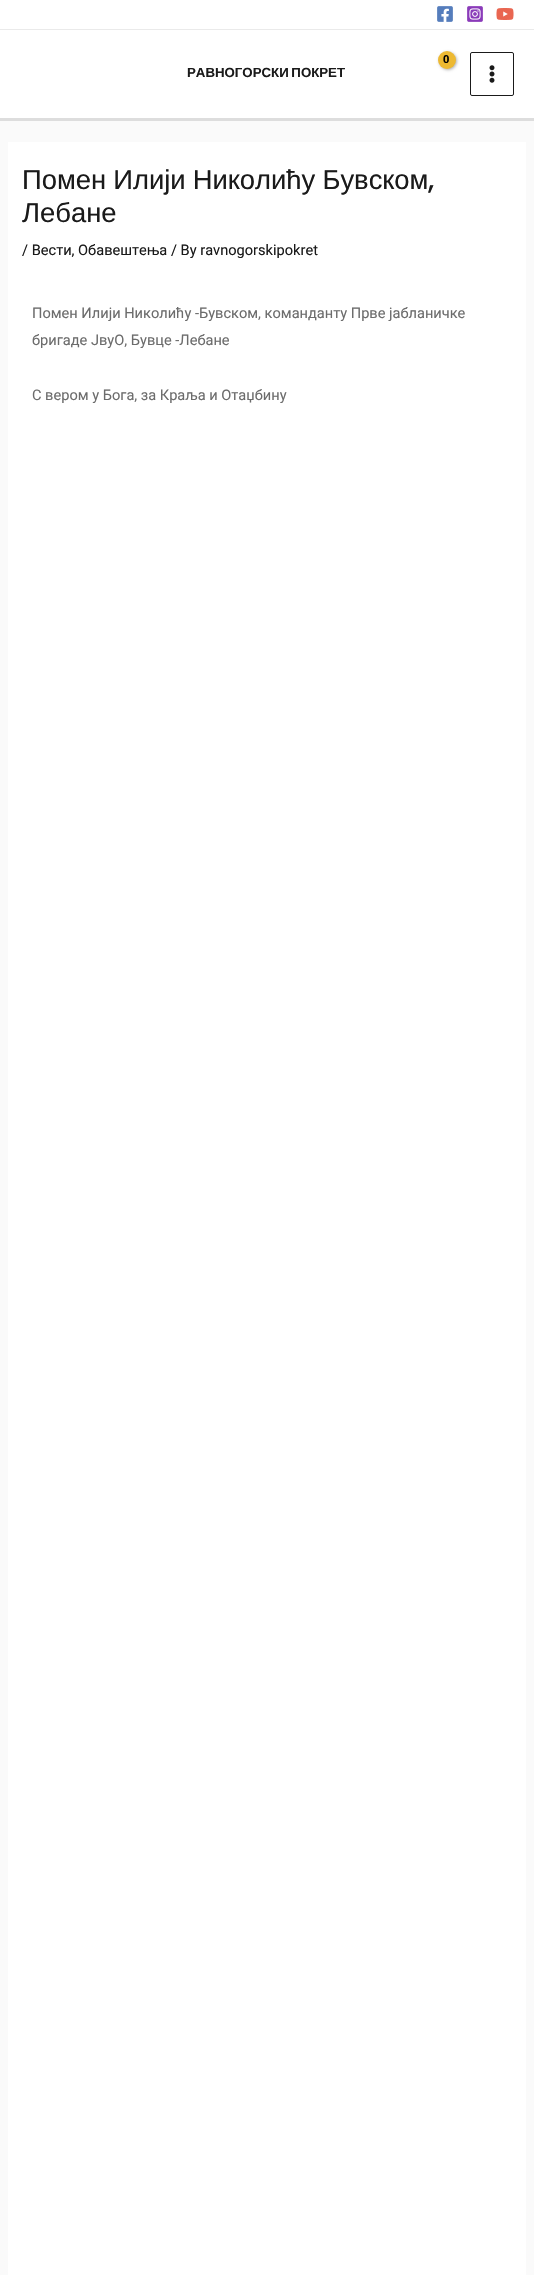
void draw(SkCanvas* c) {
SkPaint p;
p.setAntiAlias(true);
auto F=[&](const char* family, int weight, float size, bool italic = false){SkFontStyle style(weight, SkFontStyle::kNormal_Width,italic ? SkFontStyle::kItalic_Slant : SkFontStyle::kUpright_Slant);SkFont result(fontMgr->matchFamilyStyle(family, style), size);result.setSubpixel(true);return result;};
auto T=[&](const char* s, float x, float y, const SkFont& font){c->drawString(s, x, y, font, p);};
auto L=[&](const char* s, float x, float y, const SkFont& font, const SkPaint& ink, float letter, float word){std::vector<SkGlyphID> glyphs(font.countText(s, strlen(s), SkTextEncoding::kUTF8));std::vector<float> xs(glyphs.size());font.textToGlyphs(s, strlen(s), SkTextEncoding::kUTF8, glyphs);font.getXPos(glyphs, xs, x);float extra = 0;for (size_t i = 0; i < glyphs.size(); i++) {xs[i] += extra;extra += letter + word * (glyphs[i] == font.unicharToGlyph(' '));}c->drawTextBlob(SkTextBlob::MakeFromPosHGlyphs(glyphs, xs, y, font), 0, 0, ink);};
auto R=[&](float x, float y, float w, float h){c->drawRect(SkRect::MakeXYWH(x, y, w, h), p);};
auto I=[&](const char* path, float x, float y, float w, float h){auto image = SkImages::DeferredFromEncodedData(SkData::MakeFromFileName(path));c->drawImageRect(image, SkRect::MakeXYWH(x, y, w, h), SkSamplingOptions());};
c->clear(0xfffafafa);
p.setColor(0xffffffff);
R(0,0,534,29);
p.setColor(0xffeaeaea);
R(0,29,534,1);
I("1.png",437,6,16,16);
I("2.png",467,6,16,16);
I("3.png",496,8,18,12);
p.setColor(0xffffffff);
R(0,30,534,88);
p.setColor(0xffdddddd);
R(0,118,534,3);
p.setColor(0x4d000000);
p.setMaskFilter(SkMaskFilter::MakeBlur(kNormal_SkBlurStyle, 1.5));
c->drawRoundRect(SkRect::MakeXYWH(439,52,18,18),9,9,p);
p.setMaskFilter(nullptr);
p.setColor(0xffedb932);
c->drawCircle(447,60,9,p);
auto f1 = F("Roboto",700,11);
p.setColor(0xff000000);
T("0",443,63,f1);
p.setStroke(true);
p.setStrokeWidth(1);
p.setColor(0xff1a1a1a);
c->drawRoundRect(SkRect::MakeXYWH(470.5,52.5,43,43),1.5,1.5,p);
I("4.png",489,65,6,18);
auto f2 = F("Liberation Sans",700,13.25);
p.setStroke(false);
L("РАВНОГОРСКИ ПОКРЕТ",187,77,f2,p,0,-1);
p.setColor(0xffffffff);
R(8,142,518,2133);
auto f3 = F("Liberation Sans",400,27.4);
p.setColor(0xff1a1a1a);
L("Помен Илији Николићу Бувском",22,189,f3,p,0,-.5);
auto f4 = F("Poppins",500,27.4);
T(",",428,189,f4);
T("Лебане",22,222,f3);
auto f5 = F("Roboto",400,14.6);
T("/ Вести, Обавештења / By ravnogorskipokret",22,255,f5);
p.setColor(0xff6c6c6c);
T("Помен Илији Николићу -Бувском, команданту Прве јабланичке",32,318,f5);
T("бригаде ЈвуО, Бувце -Лебане",32,345,f5);
T("С вером у Бога, за Краља и Отаџбину",32,400,f5);
}
